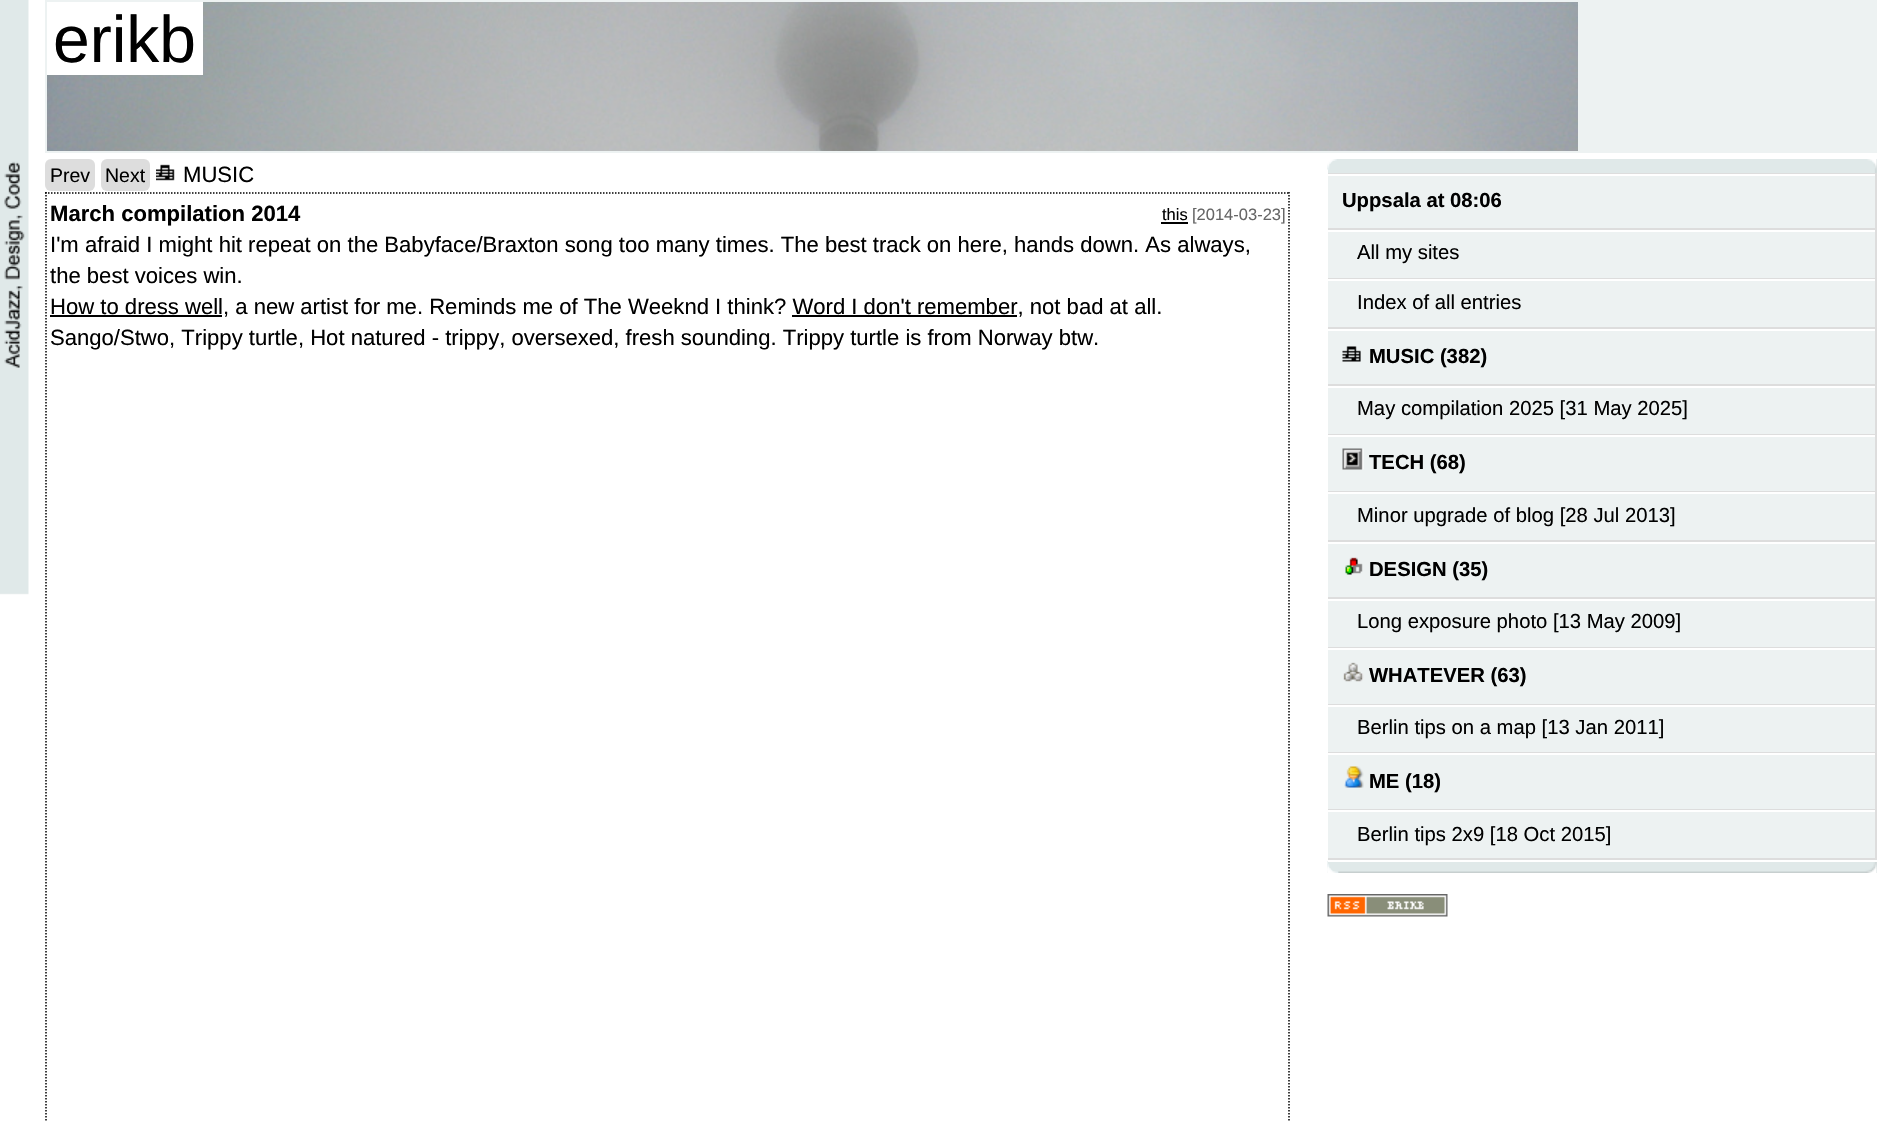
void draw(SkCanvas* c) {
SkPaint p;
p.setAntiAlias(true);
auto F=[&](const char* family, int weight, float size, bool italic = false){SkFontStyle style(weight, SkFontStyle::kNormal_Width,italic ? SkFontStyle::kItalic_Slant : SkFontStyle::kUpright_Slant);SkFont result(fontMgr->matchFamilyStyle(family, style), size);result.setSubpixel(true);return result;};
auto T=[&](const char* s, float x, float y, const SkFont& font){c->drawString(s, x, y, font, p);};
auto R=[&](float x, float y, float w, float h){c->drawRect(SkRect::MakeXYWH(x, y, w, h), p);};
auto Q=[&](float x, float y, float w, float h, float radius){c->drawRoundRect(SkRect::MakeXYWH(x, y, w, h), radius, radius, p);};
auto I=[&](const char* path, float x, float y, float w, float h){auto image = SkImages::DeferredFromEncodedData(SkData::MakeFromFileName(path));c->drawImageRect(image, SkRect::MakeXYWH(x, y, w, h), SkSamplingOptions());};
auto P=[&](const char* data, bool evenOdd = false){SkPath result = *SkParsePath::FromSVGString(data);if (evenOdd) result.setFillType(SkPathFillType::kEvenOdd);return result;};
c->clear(0xffffffff);
I("1.png",0,0,29,595);
p.setColor(0xffedf2f2);
R(1578,2,297,149);
I("2.png",47,2,1531,149);
p.setStroke(true);
p.setStrokeWidth(2);
c->drawRect(SkRect::MakeXYWH(46,1,1830,151),p);
p.setStroke(false);
p.setColor(0xffffffff);
R(47,2,156,73);
auto f1 = F("Liberation Sans",400,66);
p.setColor(0xff000000);
T("erikb",53,62,f1);
p.setColor(0xffdddddd);
Q(45,159,50,32,6);
auto f2 = F("Liberation Sans",400,19.5);
p.setColor(0xff000000);
T("Prev",50,182,f2);
p.setColor(0xffdddddd);
Q(101,159,49,32,6);
p.setColor(0xff000000);
T("Next",105,182,f2);
I("3.png",156,164,19,17);
auto f3 = F("Liberation Sans",400,22.08);
T("MUSIC",183,182,f3);
p.setStroke(true);
p.setStrokeWidth(1.5);
p.setPathEffect(SkDashPathEffect::Make({{1.5f,1.5f}}, 0));
c->drawPath(P("M45 193h1245"),p);
p.setPathEffect(nullptr);
p.setPathEffect(SkDashPathEffect::Make({{1.5f,1.5f}}, 0));
c->drawPath(P("M1289 192v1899"),p);
p.setPathEffect(nullptr);
p.setPathEffect(SkDashPathEffect::Make({{1.5f,1.5f}}, 0));
c->drawPath(P("M46 192v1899"),p);
p.setPathEffect(nullptr);
auto f4 = F("Liberation Sans",700,22.08);
p.setStroke(false);
T("March compilation 2014",50,221,f4);
auto f5 = F("Liberation Sans",400,16.5);
T("this",1162,220,f5);
R(1161,222,27,2);
p.setColor(0xff666666);
T("[2014-03-23]",1192,220,f5);
p.setColor(0xff000000);
T("I'm afraid I might hit repeat on the Babyface/Braxton song too many times. The best track on here, hands down. As always,",50,252,f3);
T("the best voices win.",50,283,f3);
R(50,315,172,2);
T("How to dress well, a new artist for me. Reminds me of The Weeknd I think? Word I don't remember, not bad at all.",50,314,f3);
R(792,315,225,2);
T("Sango/Stwo, Trippy turtle, Hot natured - trippy, oversexed, fresh sounding. Trippy turtle is from Norway btw.",50,345,f3);
p.setColor(0xffe0e9e9);
R(1328,159,549,714);
I("4.png",1875,159,2,714);
I("5.png",1327,159,550,14);
p.setColor(0xffdddddd);
R(1328,173,549,1);
I("6.png",1327,160,8,10);
p.setColor(0xffedf2f2);
R(1328,176,547,52);
p.setColor(0xffffffff);
R(1328,174,549,2);
p.setColor(0xffdddddd);
R(1875,174,2,56);
R(1328,228,549,2);
auto f6 = F("Liberation Sans",700,20.25);
p.setColor(0xff000000);
T("Uppsala at 08:06",1342,207,f6);
p.setColor(0xffedf2f2);
R(1328,232,547,46);
p.setColor(0xffffffff);
R(1328,230,549,2);
p.setColor(0xffdddddd);
R(1875,230,2,49);
R(1328,278,549,1);
auto f7 = F("Liberation Sans",400,20.25);
p.setColor(0xff000000);
T("All my sites",1357,259,f7);
p.setColor(0xffedf2f2);
R(1328,281,547,46);
p.setColor(0xffffffff);
R(1328,279,549,2);
p.setColor(0xffdddddd);
R(1875,279,2,50);
R(1328,327,549,2);
p.setColor(0xff000000);
T("Index of all entries",1357,309,f7);
p.setColor(0xffedf2f2);
R(1328,331,547,53);
p.setColor(0xffffffff);
R(1328,329,549,2);
p.setColor(0xffdddddd);
R(1875,329,2,57);
R(1328,384,549,2);
I("7.png",1342,346,19,16);
p.setColor(0xff000000);
T("MUSIC (382)",1369,363,f6);
p.setColor(0xffedf2f2);
R(1328,388,547,46);
p.setColor(0xffffffff);
R(1328,386,549,2);
p.setColor(0xffdddddd);
R(1875,386,2,49);
R(1328,434,549,1);
p.setColor(0xff000000);
T("May compilation 2025 [31 May 2025]",1357,415,f7);
p.setColor(0xffedf2f2);
R(1328,437,547,54);
p.setColor(0xffffffff);
R(1328,435,549,2);
p.setColor(0xffdddddd);
R(1875,435,2,57);
R(1328,491,549,1);
I("8.png",1342,448,22,22);
p.setColor(0xff000000);
T("TECH (68)",1369,469,f6);
p.setColor(0xffedf2f2);
R(1328,494,547,46);
p.setColor(0xffffffff);
R(1328,492,549,2);
p.setColor(0xffdddddd);
R(1875,492,2,50);
R(1328,540,549,2);
p.setColor(0xff000000);
T("Minor upgrade of blog [28 Jul 2013]",1357,522,f7);
p.setColor(0xffedf2f2);
R(1328,544,547,53);
p.setColor(0xffffffff);
R(1328,542,549,2);
p.setColor(0xffdddddd);
R(1875,542,2,57);
R(1328,597,549,2);
I("9.png",1345,557,18,18);
p.setColor(0xff000000);
T("DESIGN (35)",1369,576,f6);
p.setColor(0xffedf2f2);
R(1328,601,547,46);
p.setColor(0xffffffff);
R(1328,599,549,2);
p.setColor(0xffdddddd);
R(1875,599,2,49);
R(1328,647,549,1);
p.setColor(0xff000000);
T("Long exposure photo [13 May 2009]",1357,628,f7);
p.setColor(0xffedf2f2);
R(1328,650,547,54);
p.setColor(0xffffffff);
R(1328,648,549,2);
p.setColor(0xffdddddd);
R(1875,648,2,57);
R(1328,704,549,1);
I("10.png",1343,662,21,20);
p.setColor(0xff000000);
T("WHATEVER (63)",1369,682,f6);
p.setColor(0xffedf2f2);
R(1328,707,547,45);
p.setColor(0xffffffff);
R(1328,705,549,2);
p.setColor(0xffdddddd);
R(1875,705,2,48);
R(1328,752,549,1);
p.setColor(0xff000000);
T("Berlin tips on a map [13 Jan 2011]",1357,734,f7);
p.setColor(0xffedf2f2);
R(1328,755,547,54);
p.setColor(0xffffffff);
R(1328,753,549,2);
p.setColor(0xffdddddd);
R(1875,753,2,57);
R(1328,809,549,1);
I("11.png",1344,766,20,22);
p.setColor(0xff000000);
T("ME (18)",1369,788,f6);
p.setColor(0xffedf2f2);
R(1328,812,547,46);
p.setColor(0xffffffff);
R(1328,810,549,2);
p.setColor(0xffdddddd);
R(1875,810,2,50);
R(1328,858,549,2);
p.setColor(0xff000000);
T("Berlin tips 2x9 [18 Oct 2015]",1357,841,f7);
I("12.png",1327,861,550,12);
p.setColor(0xffffffff);
R(1328,860,549,2);
I("13.png",1327,867,12,6);
I("14.png",1327,894,121,23);
}
